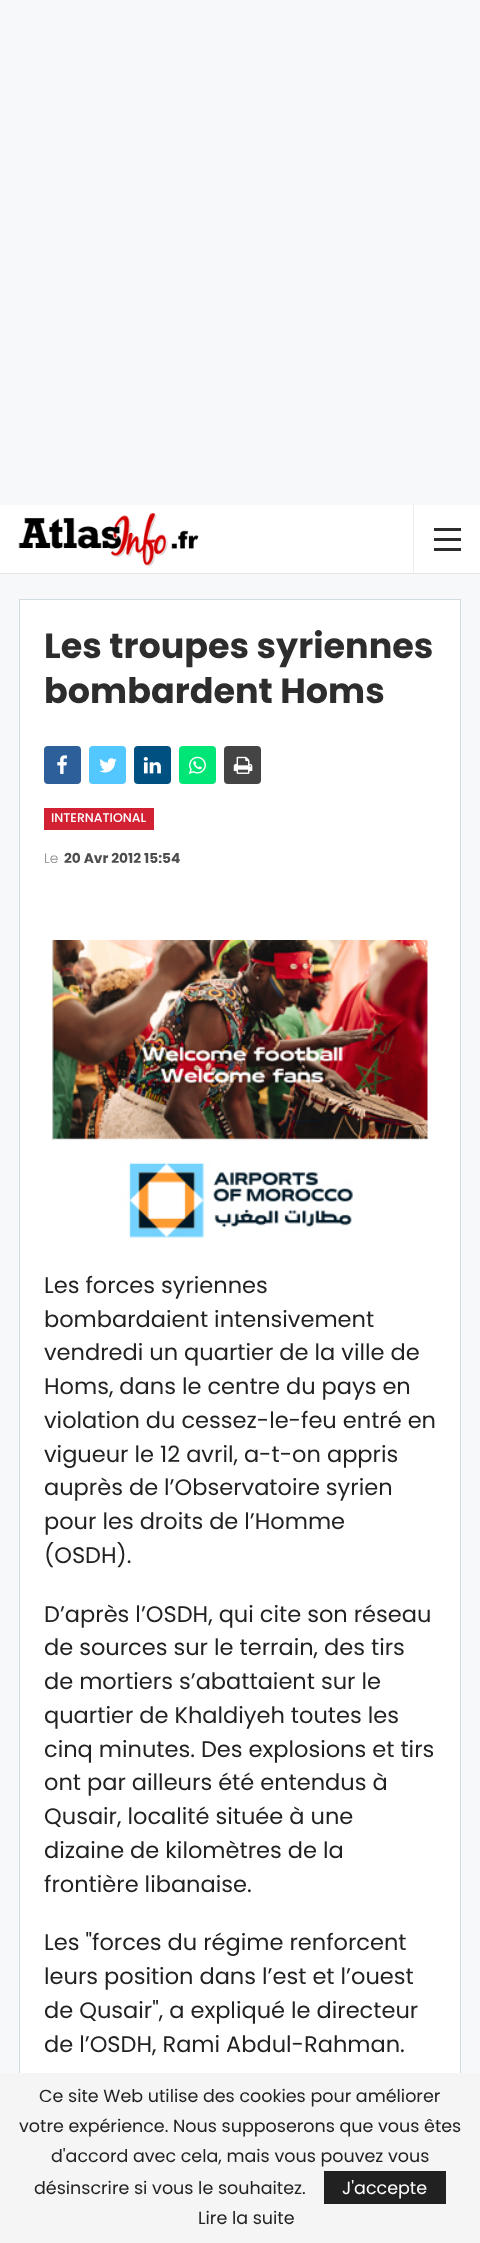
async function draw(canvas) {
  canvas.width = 480;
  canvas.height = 2243;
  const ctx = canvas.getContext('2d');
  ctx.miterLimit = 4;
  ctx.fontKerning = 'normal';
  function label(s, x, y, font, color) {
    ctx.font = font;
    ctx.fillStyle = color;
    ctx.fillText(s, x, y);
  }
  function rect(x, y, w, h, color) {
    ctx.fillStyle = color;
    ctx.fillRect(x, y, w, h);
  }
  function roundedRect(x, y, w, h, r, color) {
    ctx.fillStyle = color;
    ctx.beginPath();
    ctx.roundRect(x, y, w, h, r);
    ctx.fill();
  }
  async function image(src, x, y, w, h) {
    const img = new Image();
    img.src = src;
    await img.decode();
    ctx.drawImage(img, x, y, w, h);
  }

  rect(0, 0, 480, 2243, '#f6f8fa');
  rect(0, 505, 480, 68, '#fff');
  rect(0, 573, 480, 1, '#e5e5e5');
  await image('assets/img1.png', 18, 513, 181, 54);
  rect(413, 505, 1, 68, '#ededed');
  rect(434, 538, 27, 3, '#2c2c2c');
  rect(434, 528, 27, 3, '#2c2c2c');
  rect(434, 548, 27, 3, '#2c2c2c');
  rect(20, 600, 440, 1473, '#fff');
  ctx.strokeStyle = '#d2dce3';
  ctx.strokeRect(19.5, 599.5, 441, 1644);
  label('Les troupes syriennes', 44, 658, 'bold 35px Poppins', '#2d2d2d');
  label('bombardent Homs', 44, 703, 'bold 35px Poppins', '#2d2d2d');
  roundedRect(44, 746, 37, 38, 4, '#2d5f9a');
  await image('assets/img2.png', 57, 755, 10, 19);
  roundedRect(89, 746, 37, 38, 4, '#53c7ff');
  await image('assets/img3.png', 99, 758, 18, 15);
  roundedRect(134, 746, 37, 38, 4, '#005182');
  await image('assets/img4.png', 143, 757, 18, 17);
  roundedRect(179, 746, 37, 38, 4, '#00e676');
  await image('assets/img5.png', 188, 756, 18, 18);
  roundedRect(224, 746, 37, 38, 4, '#444');
  await image('assets/img6.png', 233, 756, 20, 18);
  rect(44, 808, 110, 22, '#d12133');
  label('INTERNATIONAL', 51, 822, '500 12.5px Poppins', '#fff');
  label('Le', 44, 863, '300 13.75px Poppins', '#8f8f8f');
  label('20 Avr 2012 15:54', 64, 863, 'bold 13.75px Poppins', '#4d4d4d');
  await image('assets/img7.png', 52, 940, 376, 298);
  label('Les forces syriennes', 44, 1293, '22.5px Poppins', '#222');
  label('bombardaient intensivement', 44, 1327, '22.5px Poppins', '#222');
  label('vendredi un quartier de la ville de', 44, 1360, '22.5px Poppins', '#222');
  label('Homs, dans le centre du pays en', 44, 1394, '22.5px Poppins', '#222');
  label('violation du cessez-le-feu entré en', 44, 1428, '22.5px Poppins', '#222');
  label('vigueur le 12 avril, a-t-on appris', 44, 1462, '22.5px Poppins', '#222');
  label('auprès de l’Observatoire syrien', 44, 1495, '22.5px Poppins', '#222');
  label('pour les droits de l’Homme', 44, 1529, '22.5px Poppins', '#222');
  label('(OSDH).', 44, 1563, '22.5px Poppins', '#222');
  label('D’après l’OSDH, qui cite son réseau', 44, 1622, '22.5px Poppins', '#222');
  label('de sources sur le terrain, des tirs', 44, 1655, '22.5px Poppins', '#222');
  label('de mortiers s’abattaient sur le', 44, 1689, '22.5px Poppins', '#222');
  label('quartier de Khaldiyeh toutes les', 44, 1723, '22.5px Poppins', '#222');
  label('cinq minutes. Des explosions et tirs', 44, 1757, '22.5px Poppins', '#222');
  label('ont par ailleurs été entendus à', 44, 1790, '22.5px Poppins', '#222');
  label('Qusair, localité située à une', 44, 1824, '22.5px Poppins', '#222');
  label('dizaine de kilomètres de la', 44, 1858, '22.5px Poppins', '#222');
  label('frontière libanaise.', 44, 1892, '22.5px Poppins', '#222');
  label('Les "forces du régime renforcent', 44, 1950, '22.5px Poppins', '#222');
  label('leurs position dans l’est et l’ouest', 44, 1984, '22.5px Poppins', '#222');
  label('de Qusair", a expliqué le directeur', 44, 2018, '22.5px Poppins', '#222');
  label('de l’OSDH, Rami Abdul-Rahman.', 44, 2052, '22.5px Poppins', '#222');
  rect(0, 2073, 480, 170, '#f5f5f5');
  label('Ce site Web utilise des cookies pour améliorer', 39, 2102, '17.5px Poppins', '#222');
  label('votre expérience. Nous supposerons que vous êtes', 19, 2132, '17.5px Poppins', '#222');
  label('d\'accord avec cela, mais vous pouvez vous', 51, 2162, '17.5px Poppins', '#222');
  label('désinscrire si vous le souhaitez.', 34, 2194, '17.5px Poppins', '#222');
  rect(324, 2171, 122, 33, '#212121');
  label('J\'accepte', 342, 2194, '17.5px Poppins', '#fff');
  label('Lire la suite', 198, 2224, '17.5px Poppins', '#222');
}

draw(document.querySelector('canvas'));
